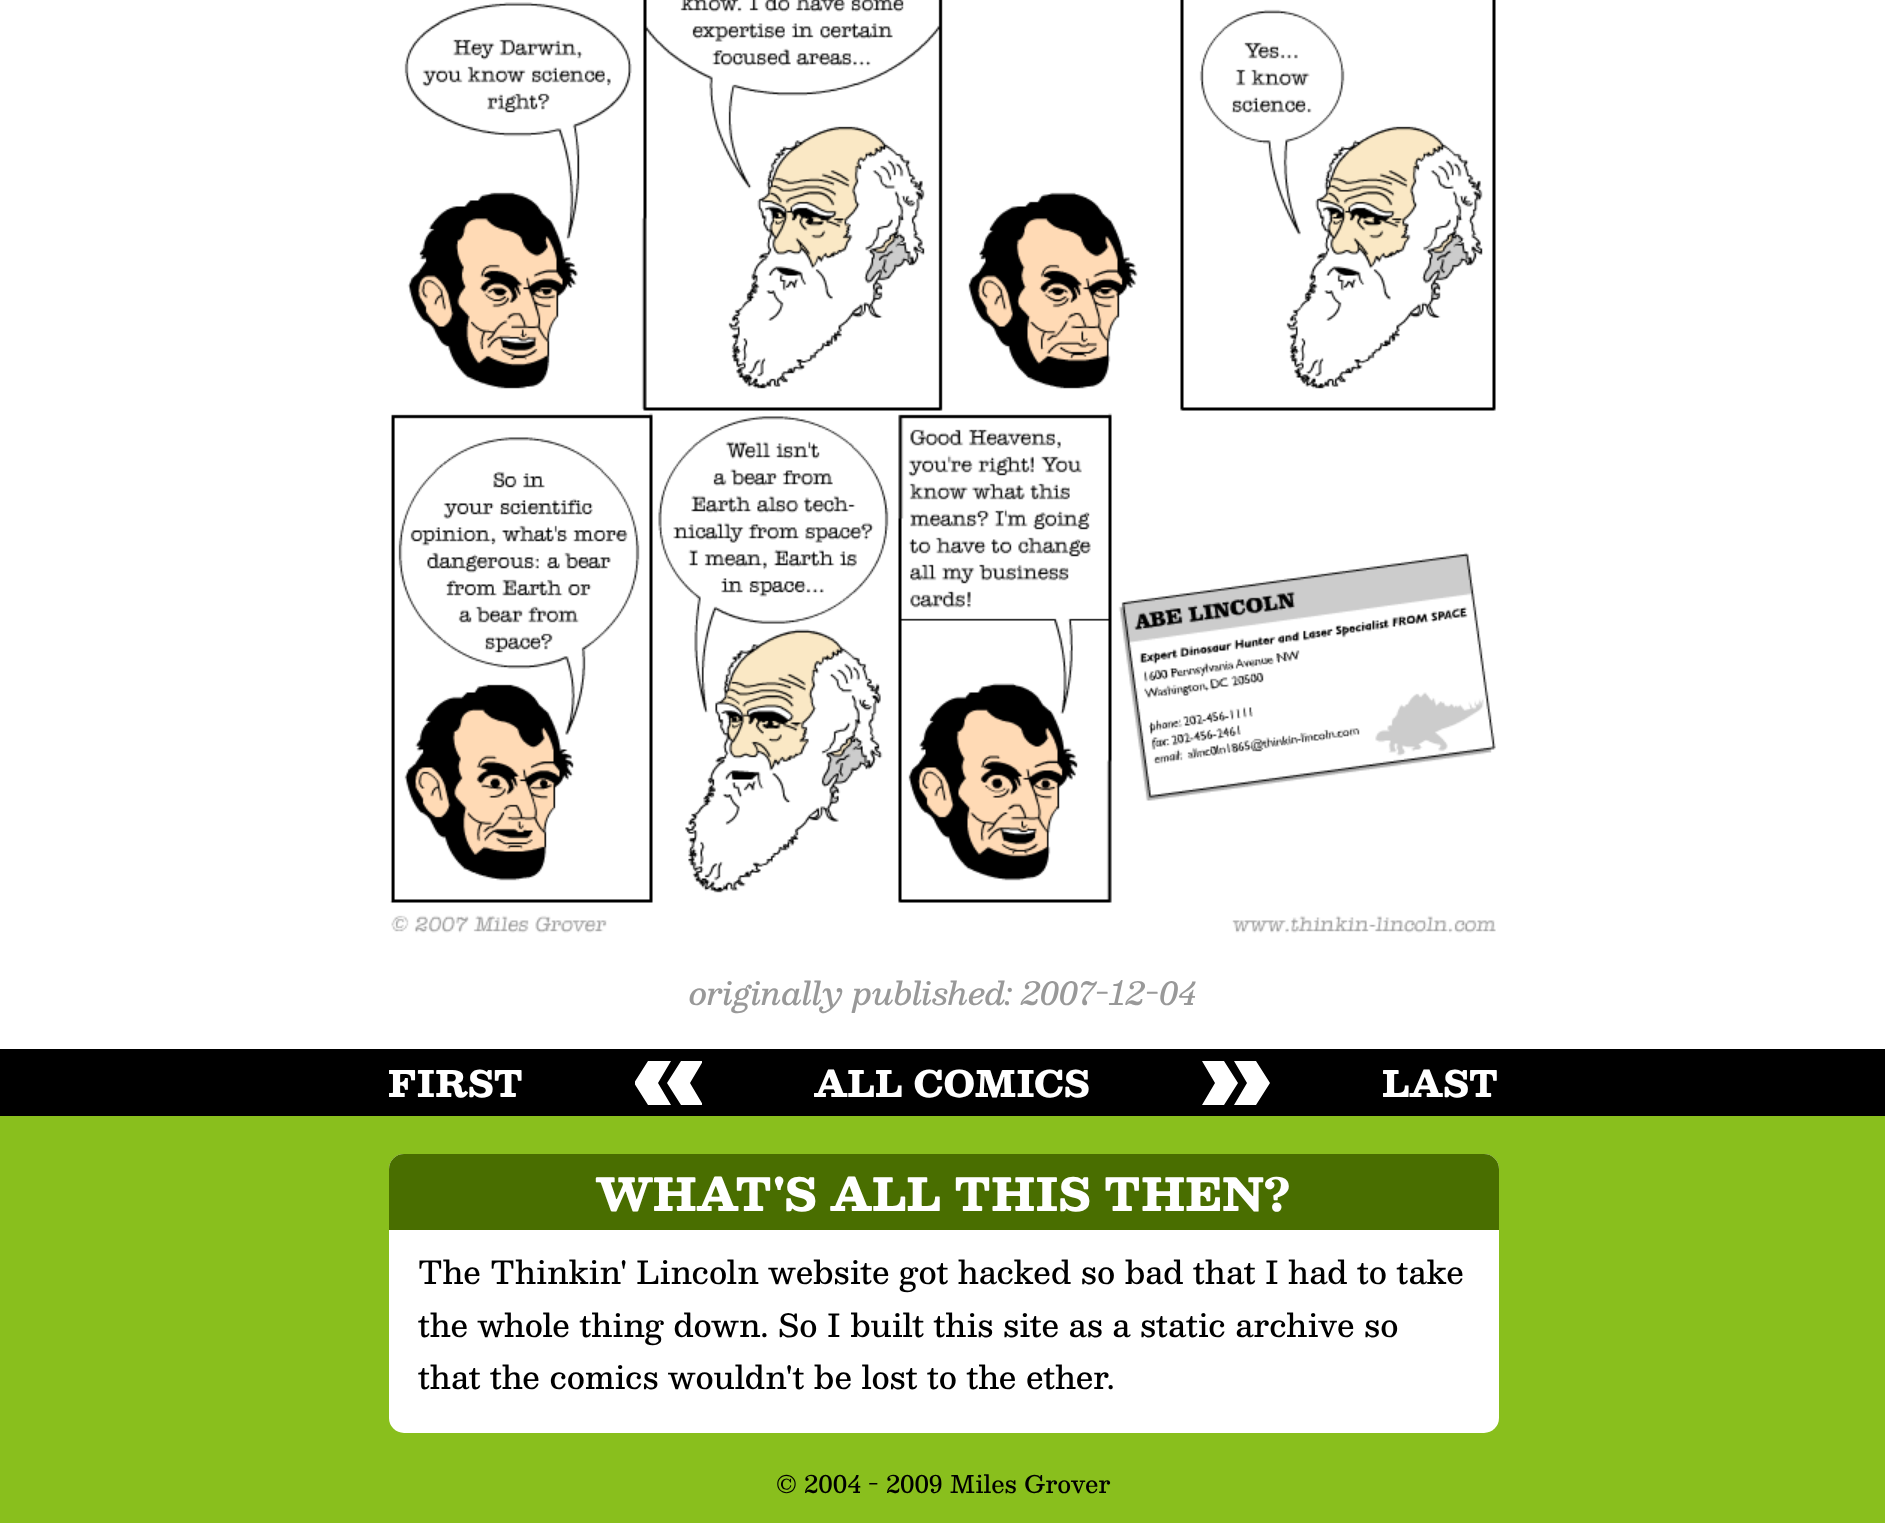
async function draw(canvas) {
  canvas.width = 1885;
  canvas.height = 1523;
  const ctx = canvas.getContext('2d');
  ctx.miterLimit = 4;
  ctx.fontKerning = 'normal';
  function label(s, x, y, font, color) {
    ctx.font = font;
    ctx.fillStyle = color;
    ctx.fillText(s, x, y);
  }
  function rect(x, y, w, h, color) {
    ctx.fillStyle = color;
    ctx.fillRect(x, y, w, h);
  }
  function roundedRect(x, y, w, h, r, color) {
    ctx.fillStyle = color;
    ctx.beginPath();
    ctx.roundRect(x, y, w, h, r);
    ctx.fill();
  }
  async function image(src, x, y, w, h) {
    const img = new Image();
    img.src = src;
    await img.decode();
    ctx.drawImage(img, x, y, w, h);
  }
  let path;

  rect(0, 0, 1885, 1523, '#89bf1d');
  rect(0, 0, 1885, 1049, '#fff');
  await image('assets/img1.png', 390, 0, 1106, 933);
  label('originally published: 2007-12-04', 689, 1005, 'italic 500 31.5px Besley', '#999');
  rect(0, 1049, 1885, 67, '#000');
  label('FIRST', 388, 1097, '800 36px Besley', '#fff');
  ctx.save();
  ctx.beginPath();
  ctx.rect(635, 1061, 67, 45);
  ctx.clip();
  path = new Path2D('M648 1061H671L658 1083L671 1105H648L634 1083ZM681 1061H703L690 1083L703 1105H681L667 1083Z');
  ctx.fill(path);
  ctx.restore();
  label('ALL COMICS', 814, 1097, '800 36px Besley', '#fff');
  path = new Path2D('M1256 1061H1234L1247 1083L1234 1105H1256L1270 1083ZM1224 1061H1202L1215 1083L1202 1105H1224L1238 1083Z');
  ctx.fill(path);
  label('LAST', 1382, 1097, '800 36px Besley', '#fff');
  roundedRect(389, 1154, 1110, 279, 15, '#fff');
  ctx.fillStyle = '#496e00';
  ctx.beginPath();
  ctx.roundRect(389, 1154, 1110, 76, [15, 15, 0, 0]);
  ctx.fill();
  label('WHAT\'S ALL THIS THEN?', 596, 1211, '800 45px Besley', '#fff');
  label('The Thinkin\' Lincoln website got hacked so bad that I had to take', 418, 1284, '500 31.5px Besley', '#000');
  label('the whole thing down. So I built this site as a static archive so', 418, 1337, '500 31.5px Besley', '#000');
  label('that the comics wouldn\'t be lost to the ether.', 418, 1389, '500 31.5px Besley', '#000');
  label('© 2004 - 2009 Miles Grover', 776, 1493, '500 24px Besley', '#000');
}

draw(document.querySelector('canvas'));
